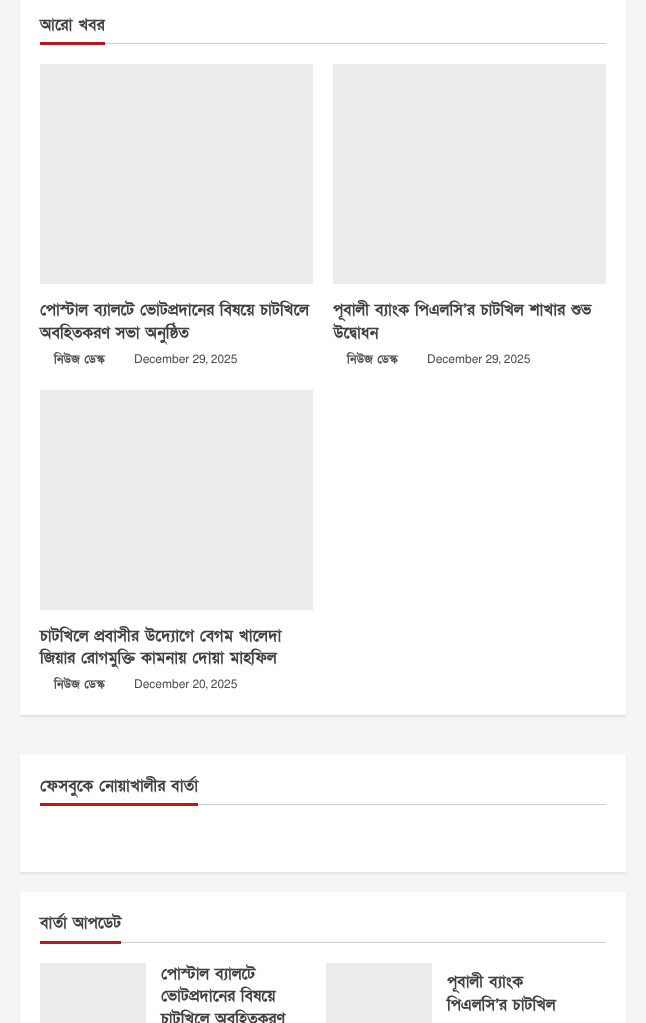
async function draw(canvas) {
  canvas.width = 646;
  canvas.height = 1023;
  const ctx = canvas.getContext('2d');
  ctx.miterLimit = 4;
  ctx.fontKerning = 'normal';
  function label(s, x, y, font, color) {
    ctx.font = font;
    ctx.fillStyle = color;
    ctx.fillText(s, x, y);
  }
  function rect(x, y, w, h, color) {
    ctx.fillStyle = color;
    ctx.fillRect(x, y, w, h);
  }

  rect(0, 0, 646, 1023, '#f5f5f5');
  ctx.fillStyle = '#00000014';
  ctx.filter = 'blur(1px)';
  ctx.beginPath();
  ctx.rect(20, -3, 606, 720);
  ctx.fill();
  ctx.filter = 'none';
  rect(20, 0, 606, 715, '#fff');
  rect(105, 43, 501, 1, '#ccc');
  label('আরো খবর', 40, 30, 'bold 16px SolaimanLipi', '#404040');
  rect(40, 42, 65, 3, '#bb1919');
  rect(40, 64, 273, 220, '#ececec');
  label('পোস্টাল ব্যালটে ভোটপ্রদানের বিষয়ে চাটখিলে', 40, 315, 'bold 16px SolaimanLipi', '#404040');
  label('অবহিতকরণ সভা অনুষ্ঠিত', 40, 338, 'bold 16px SolaimanLipi', '#404040');
  label('নিউজ ডেস্ক', 54, 363, 'bold 12px SolaimanLipi', '#4a4a4a');
  label('December 29, 2025', 134, 363, '12px SolaimanLipi', '#4a4a4a');
  rect(333, 64, 273, 220, '#ececec');
  label('পূবালী ব্যাংক পিএলসি’র চাটখিল শাখার শুভ', 333, 315, 'bold 16px SolaimanLipi', '#404040');
  label('উদ্বোধন', 333, 338, 'bold 16px SolaimanLipi', '#404040');
  label('নিউজ ডেস্ক', 347, 363, 'bold 12px SolaimanLipi', '#4a4a4a');
  label('December 29, 2025', 427, 363, '12px SolaimanLipi', '#4a4a4a');
  rect(40, 390, 273, 220, '#ececec');
  label('চাটখিলে প্রবাসীর উদ্যোগে বেগম খালেদা', 40, 641, 'bold 16px SolaimanLipi', '#404040');
  label('জিয়ার রোগমুক্তি কামনায় দোয়া মাহফিল', 40, 663, 'bold 16px SolaimanLipi', '#404040');
  label('নিউজ ডেস্ক', 54, 688, 'bold 12px SolaimanLipi', '#4a4a4a');
  label('December 20, 2025', 134, 688, '12px SolaimanLipi', '#4a4a4a');
  ctx.fillStyle = '#00000014';
  ctx.filter = 'blur(1px)';
  ctx.beginPath();
  ctx.rect(20, 757, 606, 117);
  ctx.fill();
  ctx.filter = 'none';
  rect(20, 755, 606, 117, '#fff');
  rect(198, 804, 408, 1, '#ccc');
  label('ফেসবুকে নোয়াখালীর বার্তা', 40, 791, 'bold 16px SolaimanLipi', '#404040');
  rect(40, 803, 158, 3, '#bb1919');
  ctx.fillStyle = '#00000014';
  ctx.filter = 'blur(1px)';
  ctx.beginPath();
  ctx.rect(20, 894, 606, 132);
  ctx.fill();
  ctx.filter = 'none';
  rect(20, 892, 606, 131, '#fff');
  rect(121, 942, 485, 1, '#ccc');
  label('বার্তা আপডেট', 40, 928, 'bold 16px SolaimanLipi', '#404040');
  rect(40, 941, 81, 3, '#bb1919');
  rect(40, 963, 106, 60, '#ececec');
  label('পোস্টাল ব্যালটে', 161, 979, 'bold 16px SolaimanLipi', '#404040');
  label('ভোটপ্রদানের বিষয়ে', 161, 1001, 'bold 16px SolaimanLipi', '#404040');
  label('চাটখিলে অবহিতকরণ', 161, 1024, 'bold 16px SolaimanLipi', '#404040');
  rect(326, 963, 106, 60, '#ececec');
  label('পূবালী ব্যাংক', 447, 987, 'bold 16px SolaimanLipi', '#404040');
  label('পিএলসি’র চাটখিল', 447, 1010, 'bold 16px SolaimanLipi', '#404040');
}

draw(document.querySelector('canvas'));
